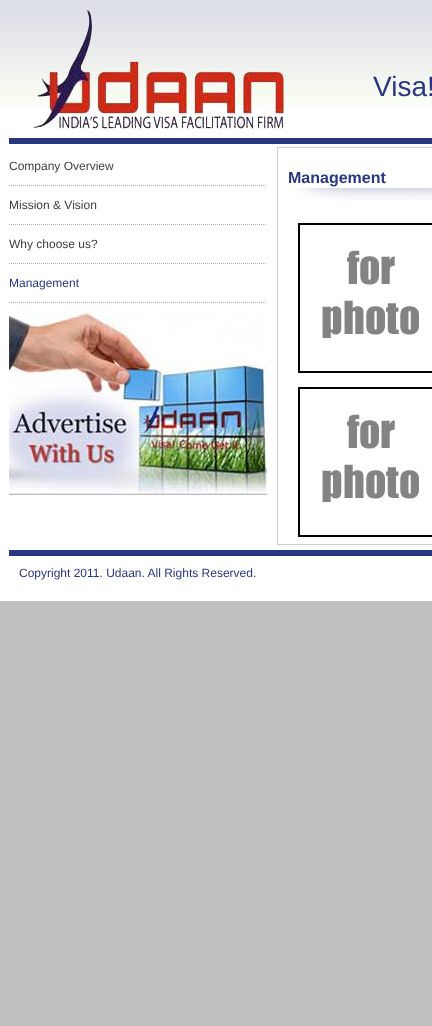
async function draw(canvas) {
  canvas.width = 432;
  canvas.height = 1026;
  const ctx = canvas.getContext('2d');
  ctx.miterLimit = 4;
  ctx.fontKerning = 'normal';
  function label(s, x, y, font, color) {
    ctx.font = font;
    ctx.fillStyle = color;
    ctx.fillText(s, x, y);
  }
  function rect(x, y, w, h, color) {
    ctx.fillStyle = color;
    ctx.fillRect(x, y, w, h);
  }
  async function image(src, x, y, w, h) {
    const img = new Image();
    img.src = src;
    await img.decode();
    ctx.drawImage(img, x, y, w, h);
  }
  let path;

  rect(0, 0, 432, 1026, '#bfbfbf');
  rect(0, 105, 432, 496, '#fff');
  await image('assets/img1.png', 0, 0, 432, 105);
  await image('assets/img2.png', 33, 10, 252, 119);
  label('Visa!', 373, 96, '28px Liberation Sans', '#293782');
  rect(9, 138, 423, 6, '#293782');
  path = new Path2D('M9 185.5H266');
  ctx.strokeStyle = '#aeaeae';
  ctx.setLineDash([1, 1]);
  ctx.stroke(path);
  label('Company Overview', 9, 170, '12px Liberation Sans', '#3f3f3f');
  path = new Path2D('M9 224.5H266');
  ctx.stroke(path);
  label('Mission & Vision', 9, 209, '12px Liberation Sans', '#3f3f3f');
  path = new Path2D('M9 263.5H266');
  ctx.stroke(path);
  label('Why choose us?', 9, 248, '12px Liberation Sans', '#3f3f3f');
  path = new Path2D('M9 302.5H266');
  ctx.stroke(path);
  label('Management', 9, 287, '12px Liberation Sans', '#293782');
  await image('assets/img3.png', 9, 311, 258, 184);
  ctx.strokeStyle = '#ccc';
  ctx.setLineDash([]);
  ctx.strokeRect(277.5, 147.5, 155, 397);
  await image('assets/img4.png', 296, 188, 136, 12);
  label('Management', 288, 183, 'bold 16px Liberation Sans', '#293782');
  await image('assets/img5.png', 298, 223, 134, 150);
  await image('assets/img5.png', 298, 387, 134, 150);
  rect(9, 550, 423, 6, '#293782');
  label('Copyright 2011. Udaan. All Rights Reserved.', 19, 577, '12px Liberation Sans', '#293782');
}

draw(document.querySelector('canvas'));
